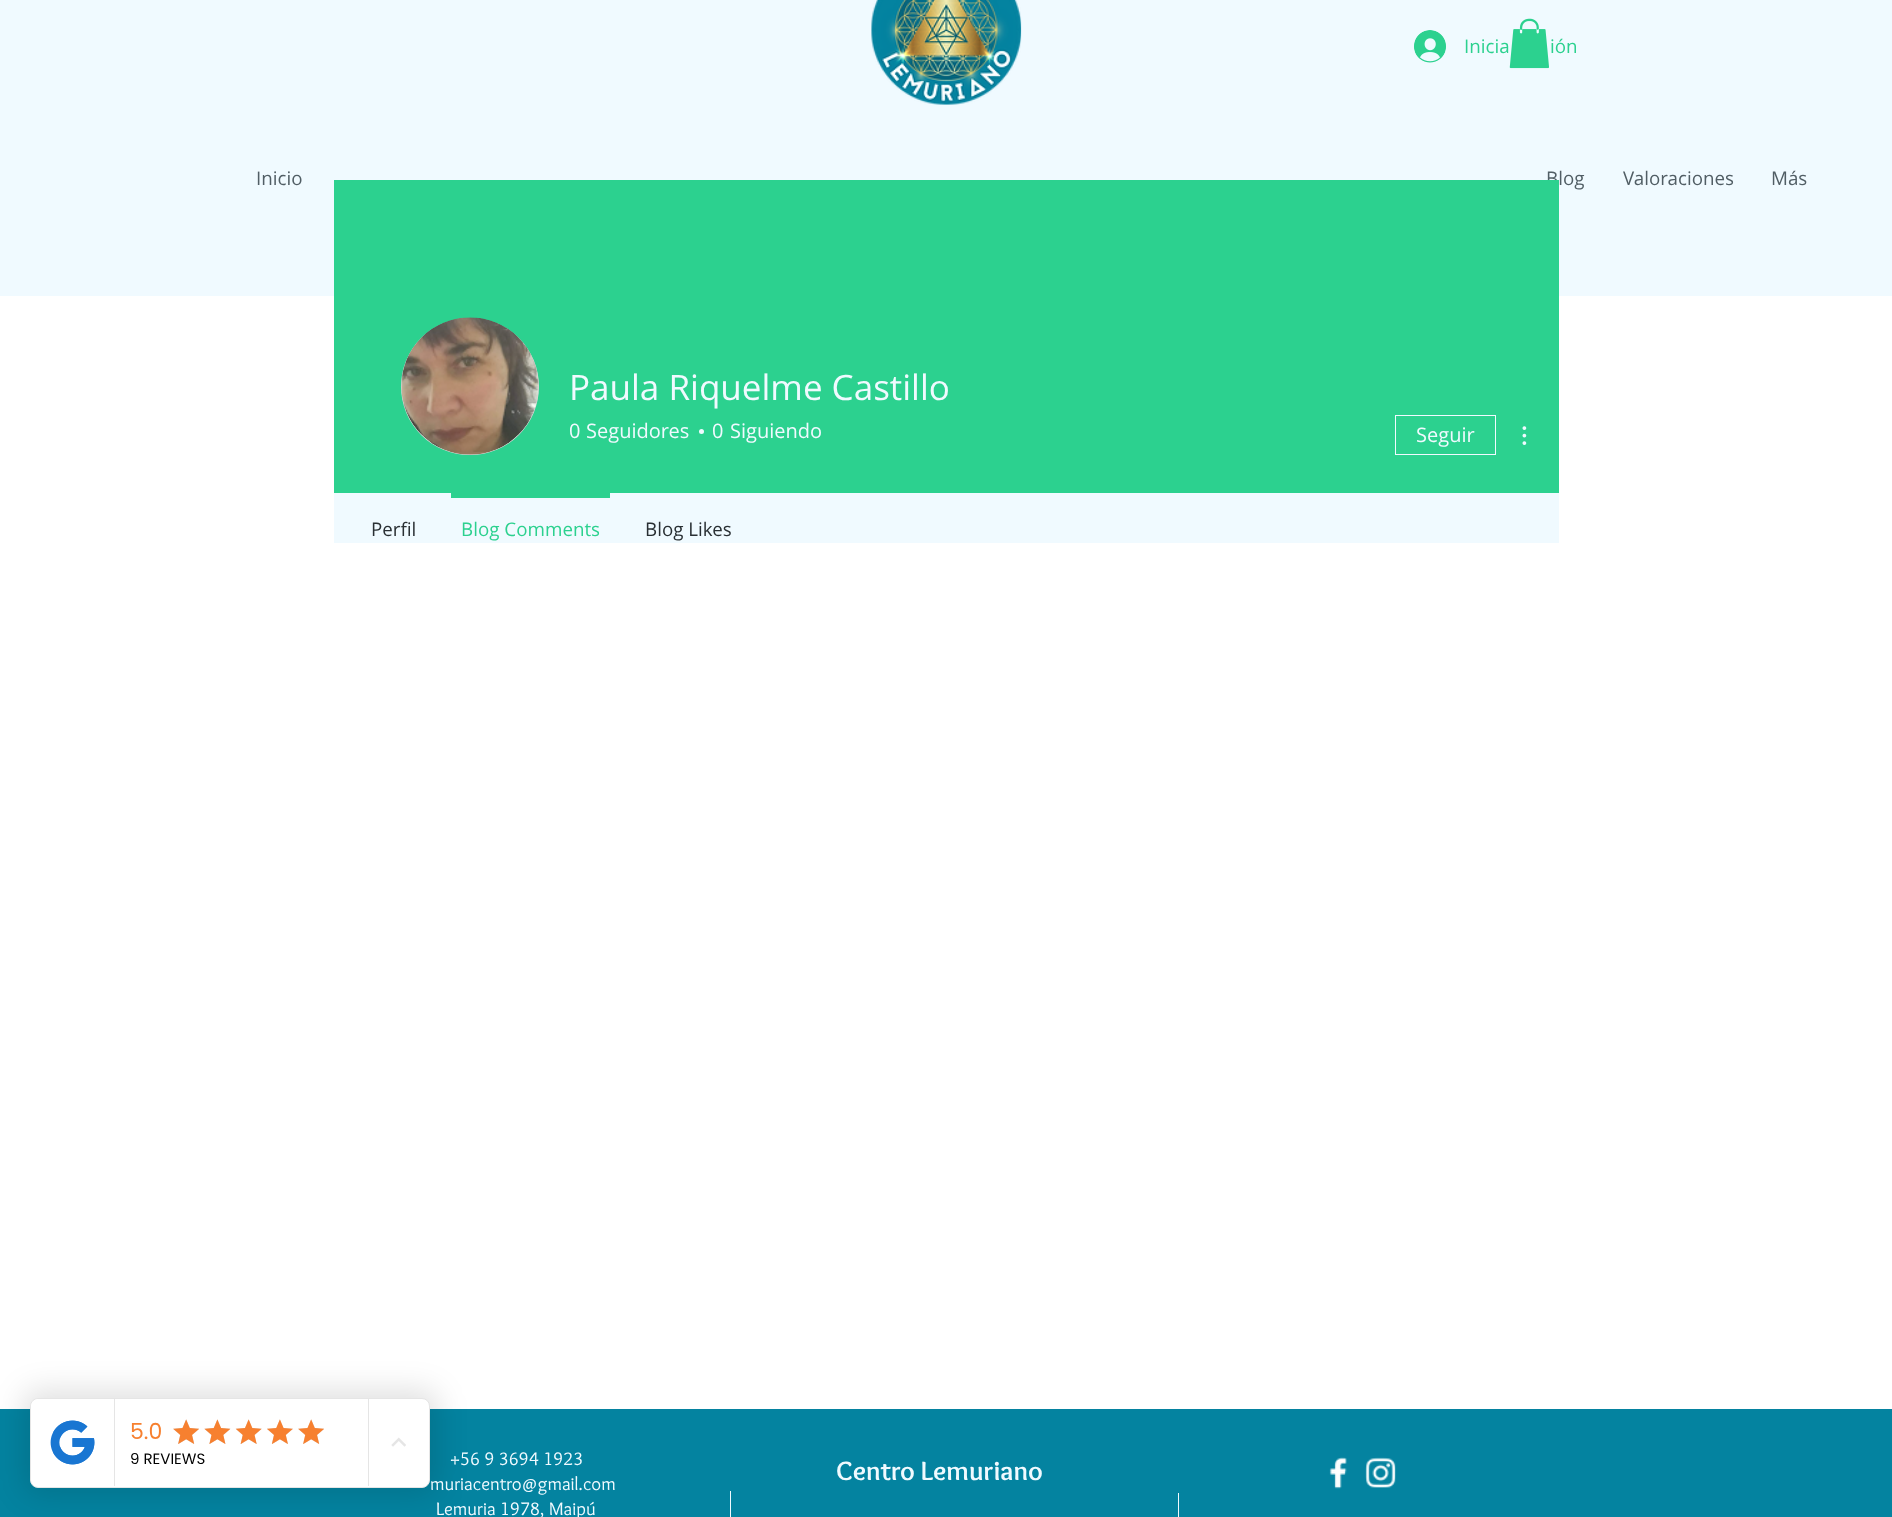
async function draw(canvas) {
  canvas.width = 1892;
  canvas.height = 1517;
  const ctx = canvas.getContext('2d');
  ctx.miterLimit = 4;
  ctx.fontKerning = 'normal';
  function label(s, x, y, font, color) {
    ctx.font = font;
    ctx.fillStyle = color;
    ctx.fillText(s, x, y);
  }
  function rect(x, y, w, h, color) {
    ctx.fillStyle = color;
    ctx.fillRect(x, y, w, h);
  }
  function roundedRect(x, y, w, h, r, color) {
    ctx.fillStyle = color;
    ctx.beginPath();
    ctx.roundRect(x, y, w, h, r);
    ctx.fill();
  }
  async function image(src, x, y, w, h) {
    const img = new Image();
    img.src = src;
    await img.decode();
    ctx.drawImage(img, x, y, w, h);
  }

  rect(0, 0, 1892, 1517, '#fff');
  rect(0, 1409, 1892, 108, '#0483a0');
  ctx.fillStyle = '#0000001f';
  ctx.filter = 'blur(15px)';
  ctx.beginPath();
  ctx.roundRect(23, 1390, 415, 105, 15);
  ctx.fill();
  ctx.filter = 'none';
  ctx.fillStyle = '#fff';
  ctx.beginPath();
  ctx.roundRect(30.5, 1398.5, 399, 89, 7.5);
  ctx.fill();
  ctx.strokeStyle = '#e5e5e5';
  ctx.stroke();
  ctx.beginPath();
  ctx.roundRect(31, 1399, 84, 87, [8, 0, 0, 8]);
  ctx.fill();
  rect(114, 1399, 1, 87, '#e5e5e5');
  await image('assets/img1.png', 50, 1420, 45, 45);
  rect(368, 1399, 1, 87, '#e5e5e5');
  label('5.0', 130, 1439, '22px Poppins', '#f7802f');
  await image('assets/img2.png', 173, 1419, 26, 25);
  await image('assets/img3.png', 173, 1419, 26, 25);
  await image('assets/img4.png', 204, 1419, 26, 25);
  await image('assets/img5.png', 204, 1419, 27, 25);
  await image('assets/img7.png', 236, 1419, 26, 25);
  await image('assets/img6.png', 235, 1419, 27, 25);
  await image('assets/img8.png', 267, 1419, 26, 25);
  await image('assets/img9.png', 267, 1419, 26, 25);
  await image('assets/img2.png', 298, 1419, 26, 25);
  await image('assets/img3.png', 298, 1419, 26, 25);
  label('9 REVIEWS', 130, 1464, '15px Poppins', '#000');
  await image('assets/img10.png', 391, 1437, 15, 10);
  rect(0, 0, 1892, 296, '#f0faff');
  await image('assets/img11.png', 871, 0, 151, 105);
  await image('assets/img12.png', 1509, 18, 40, 51);
  await image('assets/img13.png', 1414, 30, 32, 33);
  label('Inicia', 1464, 53, '18.75px Open Sans', '#2cd18f');
  label('ión', 1550, 53, '18.75px Open Sans', '#2cd18f');
  label('Inicio', 256, 185, '18.75px Open Sans', '#515e65');
  label('Blog', 1546, 185, '18.75px Open Sans', '#515e65');
  label('Valoraciones', 1623, 185, '18.75px Open Sans', '#515e65');
  label('Más', 1771, 185, '18.75px Open Sans', '#515e65');
  rect(334, 180, 1225, 313, '#2cd18f');
  roundedRect(401, 318, 138, 137, 68.5, '#d8d8d8');
  await image('assets/img14.png', 401, 317, 138, 138);
  label('Paula Riquelme Castillo', 569, 400, '35px Open Sans', '#f0faff');
  label('0', 569, 438, '20px Open Sans', '#f0faff');
  label('Seguidores', 586, 438, '20px Open Sans', '#f0faff');
  ctx.beginPath();
  ctx.arc(701.5, 431.5, 2.5, 0, 2 * Math.PI);
  ctx.fill();
  label('0', 712, 438, '20px Open Sans', '#f0faff');
  label('Siguiendo', 730, 438, '20px Open Sans', '#f0faff');
  ctx.strokeStyle = '#f0faff';
  ctx.strokeRect(1395.5, 415.5, 100, 39);
  label('Seguir', 1416, 442, '20px Open Sans', '#f0faff');
  await image('assets/img15.png', 1522, 426, 5, 19);
  rect(334, 493, 1225, 50, '#f0faff');
  label('Perfil', 371, 536, '18.75px Open Sans', '#292f33');
  rect(451, 493, 159, 5, '#2cd18f');
  label('Blog Comments', 461, 536, '18.75px Open Sans', '#2cd18f');
  label('Blog Likes', 645, 536, '18.75px Open Sans', '#292f33');
  label('+56 9 3694 1923', 450, 1465, '18.75px Overlock', '#f0faff');
  label('muriacentro@gmail.com', 430, 1490, '18.75px Overlock', '#f0faff');
  label('Lemuria 1978, Maipú', 436, 1515, '18.75px Overlock', '#f0faff');
  label('Centro Lemuriano', 836, 1480, 'bold 27.5px Overlock', '#f0faff');
  await image('assets/img16.png', 1329, 1457, 18, 32);
  await image('assets/img17.png', 1365, 1457, 31, 31);
  rect(1178, 1493, 1, 24, '#f0faff');
  rect(730, 1491, 1, 26, '#f0faff');
}

draw(document.querySelector('canvas'));
